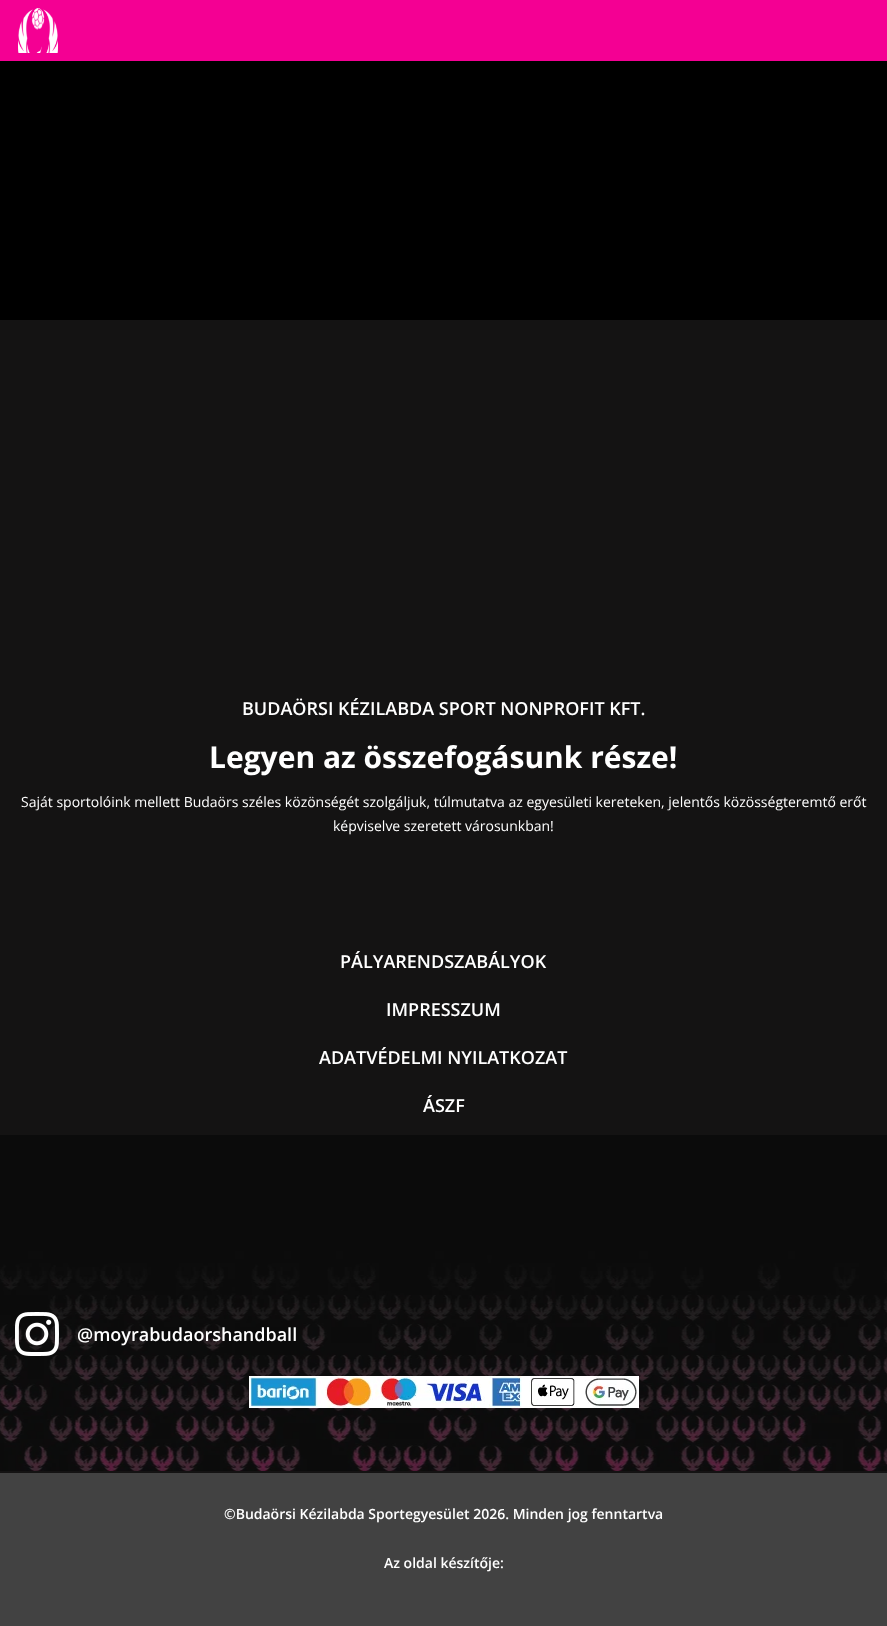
async function draw(canvas) {
  canvas.width = 887;
  canvas.height = 1626;
  const ctx = canvas.getContext('2d');
  ctx.miterLimit = 4;
  ctx.fontKerning = 'normal';
  function label(s, x, y, font, color) {
    ctx.font = font;
    ctx.fillStyle = color;
    ctx.fillText(s, x, y);
  }
  function rect(x, y, w, h, color) {
    ctx.fillStyle = color;
    ctx.fillRect(x, y, w, h);
  }
  async function image(src, x, y, w, h) {
    const img = new Image();
    img.src = src;
    await img.decode();
    ctx.drawImage(img, x, y, w, h);
  }

  rect(0, 0, 887, 1626, '#000');
  rect(0, 0, 887, 61, '#f40093');
  await image('assets/img1.png', 18, 8, 40, 45);
  rect(0, 320, 887, 1153, '#141313');
  label('BUDAÖRSI KÉZILABDA SPORT NONPROFIT KFT.', 242, 715, '600 18px Open Sans', '#fff');
  label('Legyen az összefogásunk része!', 209, 768, 'bold 30px Open Sans', '#fff');
  label('Saját sportolóink mellett Budaörs széles közönségét szolgáljuk, túlmutatva az egyesületi kereteken, jelentős közösségteremtő erőt', 21, 807, '14px Open Sans', '#fff');
  label('képviselve szeretett városunkban!', 333, 831, '14px Open Sans', '#fff');
  label('PÁLYARENDSZABÁLYOK', 340, 968, '600 18px Open Sans', '#fff');
  label('IMPRESSZUM', 386, 1016, '600 18px Open Sans', '#fff');
  label('ADATVÉDELMI NYILATKOZAT', 319, 1064, '600 18px Open Sans', '#fff');
  label('ÁSZF', 423, 1112, '600 18px Open Sans', '#fff');
  await image('assets/img4.png', 0, 1135, 887, 336);
  await image('assets/img2.png', 15, 1312, 44, 44);
  label('@moyrabudaorshandball', 77, 1341, '600 18px Open Sans', '#fff');
  await image('assets/img3.png', 249, 1376, 390, 32);
  rect(0, 1473, 887, 153, '#424242');
  label('©Budaörsi Kézilabda Sportegyesület 2026. Minden jog fenntartva', 224, 1519, '600 14px Open Sans', '#fff');
  label('Az oldal készítője:', 384, 1568, '600 14px Open Sans', '#fff');
}

draw(document.querySelector('canvas'));
